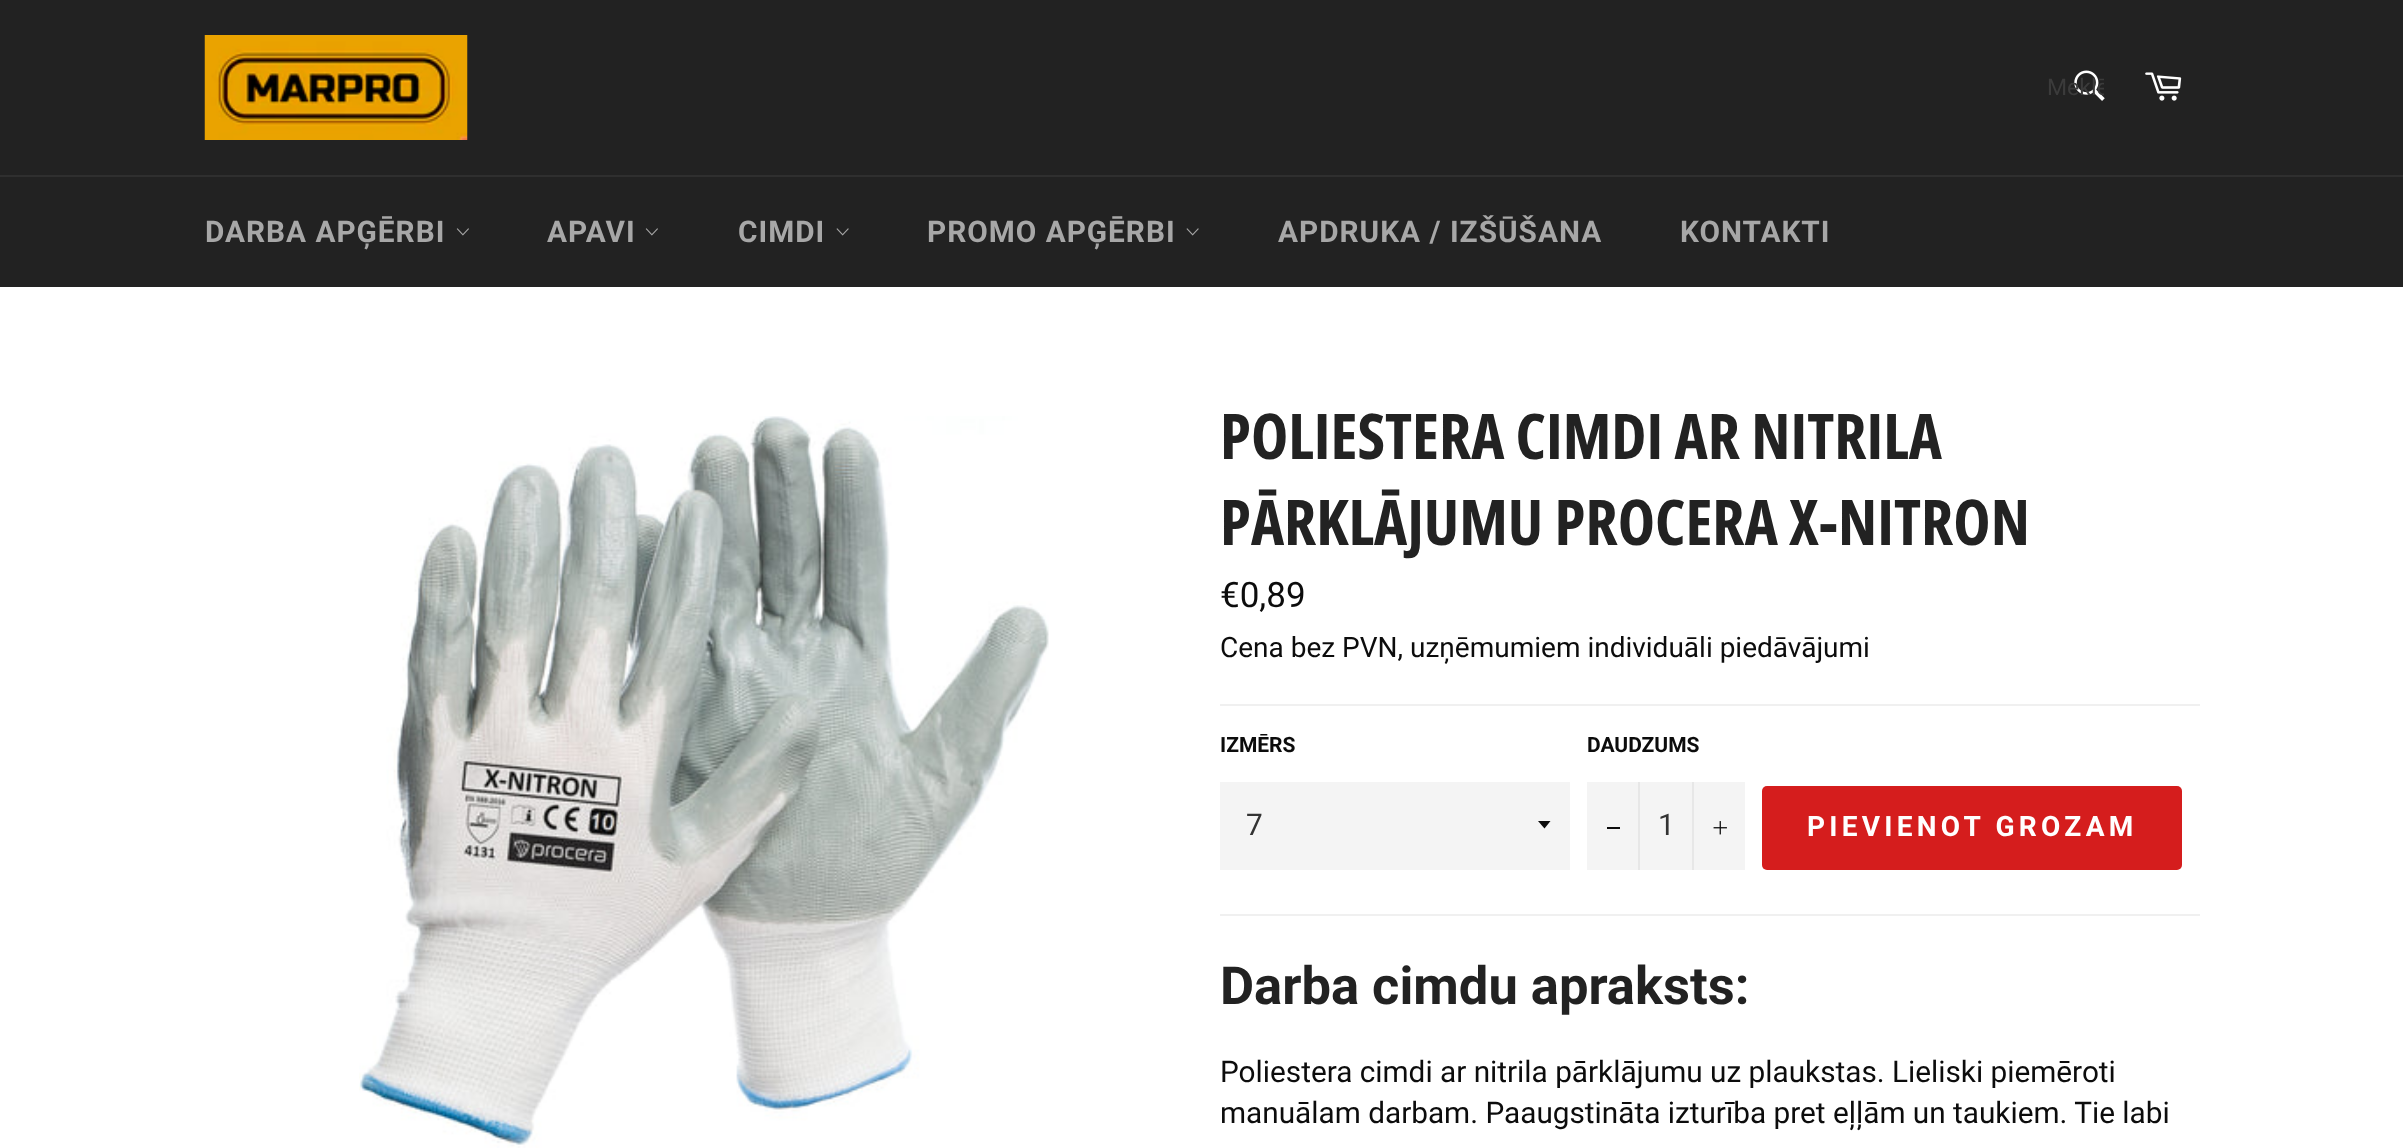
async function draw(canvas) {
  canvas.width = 2403;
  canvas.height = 1148;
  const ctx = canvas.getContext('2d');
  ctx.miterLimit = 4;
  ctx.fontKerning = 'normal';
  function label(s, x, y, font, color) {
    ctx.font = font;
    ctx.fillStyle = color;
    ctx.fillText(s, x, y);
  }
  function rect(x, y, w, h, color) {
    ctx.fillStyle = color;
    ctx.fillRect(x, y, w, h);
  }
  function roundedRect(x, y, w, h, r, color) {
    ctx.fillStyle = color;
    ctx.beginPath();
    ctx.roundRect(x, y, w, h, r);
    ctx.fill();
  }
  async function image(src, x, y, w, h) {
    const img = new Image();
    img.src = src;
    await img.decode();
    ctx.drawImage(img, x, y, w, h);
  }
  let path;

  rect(0, 0, 2403, 1148, '#222');
  await image('assets/img1.png', 204, 35, 264, 105);
  await image('assets/img2.png', 2074, 70, 31, 31);
  ctx.save();
  ctx.beginPath();
  ctx.rect(2048, 75, 56, 27);
  ctx.clip();
  label('Meklē', 2047, 95, '23px Roboto', '#3b3b3b');
  ctx.restore();
  await image('assets/img3.png', 2145, 72, 37, 29);
  rect(0, 175, 2403, 2, '#2f2f2f');
  ctx.letterSpacing = '1px';
  label('DARBA APĢĒRBI', 205, 242, 'bold 29.75px Roboto', '#a7a7a7');
  await image('assets/img4.png', 456, 228, 13, 8);
  label('APAVI', 547, 242, 'bold 29.75px Roboto', '#a7a7a7');
  await image('assets/img4.png', 645, 228, 13, 8);
  label('CIMDI', 738, 242, 'bold 29.75px Roboto', '#a7a7a7');
  await image('assets/img5.png', 836, 228, 13, 8);
  label('PROMO APĢĒRBI', 927, 242, 'bold 29.75px Roboto', '#a7a7a7');
  await image('assets/img5.png', 1186, 228, 13, 8);
  label('APDRUKA / IZŠŪŠANA', 1278, 242, 'bold 29.75px Roboto', '#a7a7a7');
  label('KONTAKTI', 1680, 242, 'bold 29.75px Roboto', '#a7a7a7');
  rect(0, 287, 2403, 861, '#fff');
  await image('assets/img6.png', 359, 416, 690, 732);
  ctx.letterSpacing = '0px';
  label('POLIESTERA CIMDI AR NITRILA', 1220, 459, 'bold 63px Open Sans Condensed', '#222');
  label('PĀRKLĀJUMU PROCERA X-NITRON', 1220, 545, 'bold 63px Open Sans Condensed', '#222');
  label('€0,89', 1220, 607, '35px Roboto', '#0c0c0c');
  label('Cena bez PVN, uzņēmumiem individuāli piedāvājumi', 1220, 657, '28px Roboto', '#0c0c0c');
  rect(1220, 704, 980, 2, '#f0f0f0');
  label('IZMĒRS', 1220, 752, 'bold 21px Roboto', '#0c0c0c');
  rect(1220, 782, 350, 88, '#f4f4f4');
  ctx.fillStyle = '#0c0c0c';
  path = new Path2D('M1538 821L1544.5 828.5L1550.5 821Z');
  ctx.fill(path);
  label('7', 1246, 835, '29.75px Roboto', '#333');
  label('DAUDZUMS', 1587, 752, 'bold 21px Roboto', '#0c0c0c');
  rect(1587, 782, 158, 88, '#f4f4f4');
  rect(1638, 782, 2, 88, '#e7e7e7');
  rect(1607, 827, 13, 2, '#0c0c0c');
  label('1', 1658, 835, '29.75px Roboto', '#333');
  rect(1692, 782, 2, 88, '#e7e7e7');
  await image('assets/img7.png', 1713, 821, 14, 14);
  roundedRect(1762, 786, 420, 84, 5, '#d51d1d');
  ctx.letterSpacing = '4.25px';
  label('PIEVIENOT GROZAM', 1807, 836, 'bold 28px Roboto', '#fff');
  rect(1220, 914, 980, 2, '#f0f0f0');
  ctx.letterSpacing = '0px';
  label('Darba cimdu apraksts:', 1220, 1004, 'bold 52.5px Roboto', '#222');
  label('Poliestera cimdi ar nitrila pārklājumu uz plaukstas. Lieliski piemēroti', 1220, 1082, '29.75px Roboto', '#0c0c0c');
  label('manuālam darbam. Paaugstināta izturība pret eļļām un taukiem. Tie labi', 1220, 1123, '29.75px Roboto', '#0c0c0c');
}

draw(document.querySelector('canvas'));
